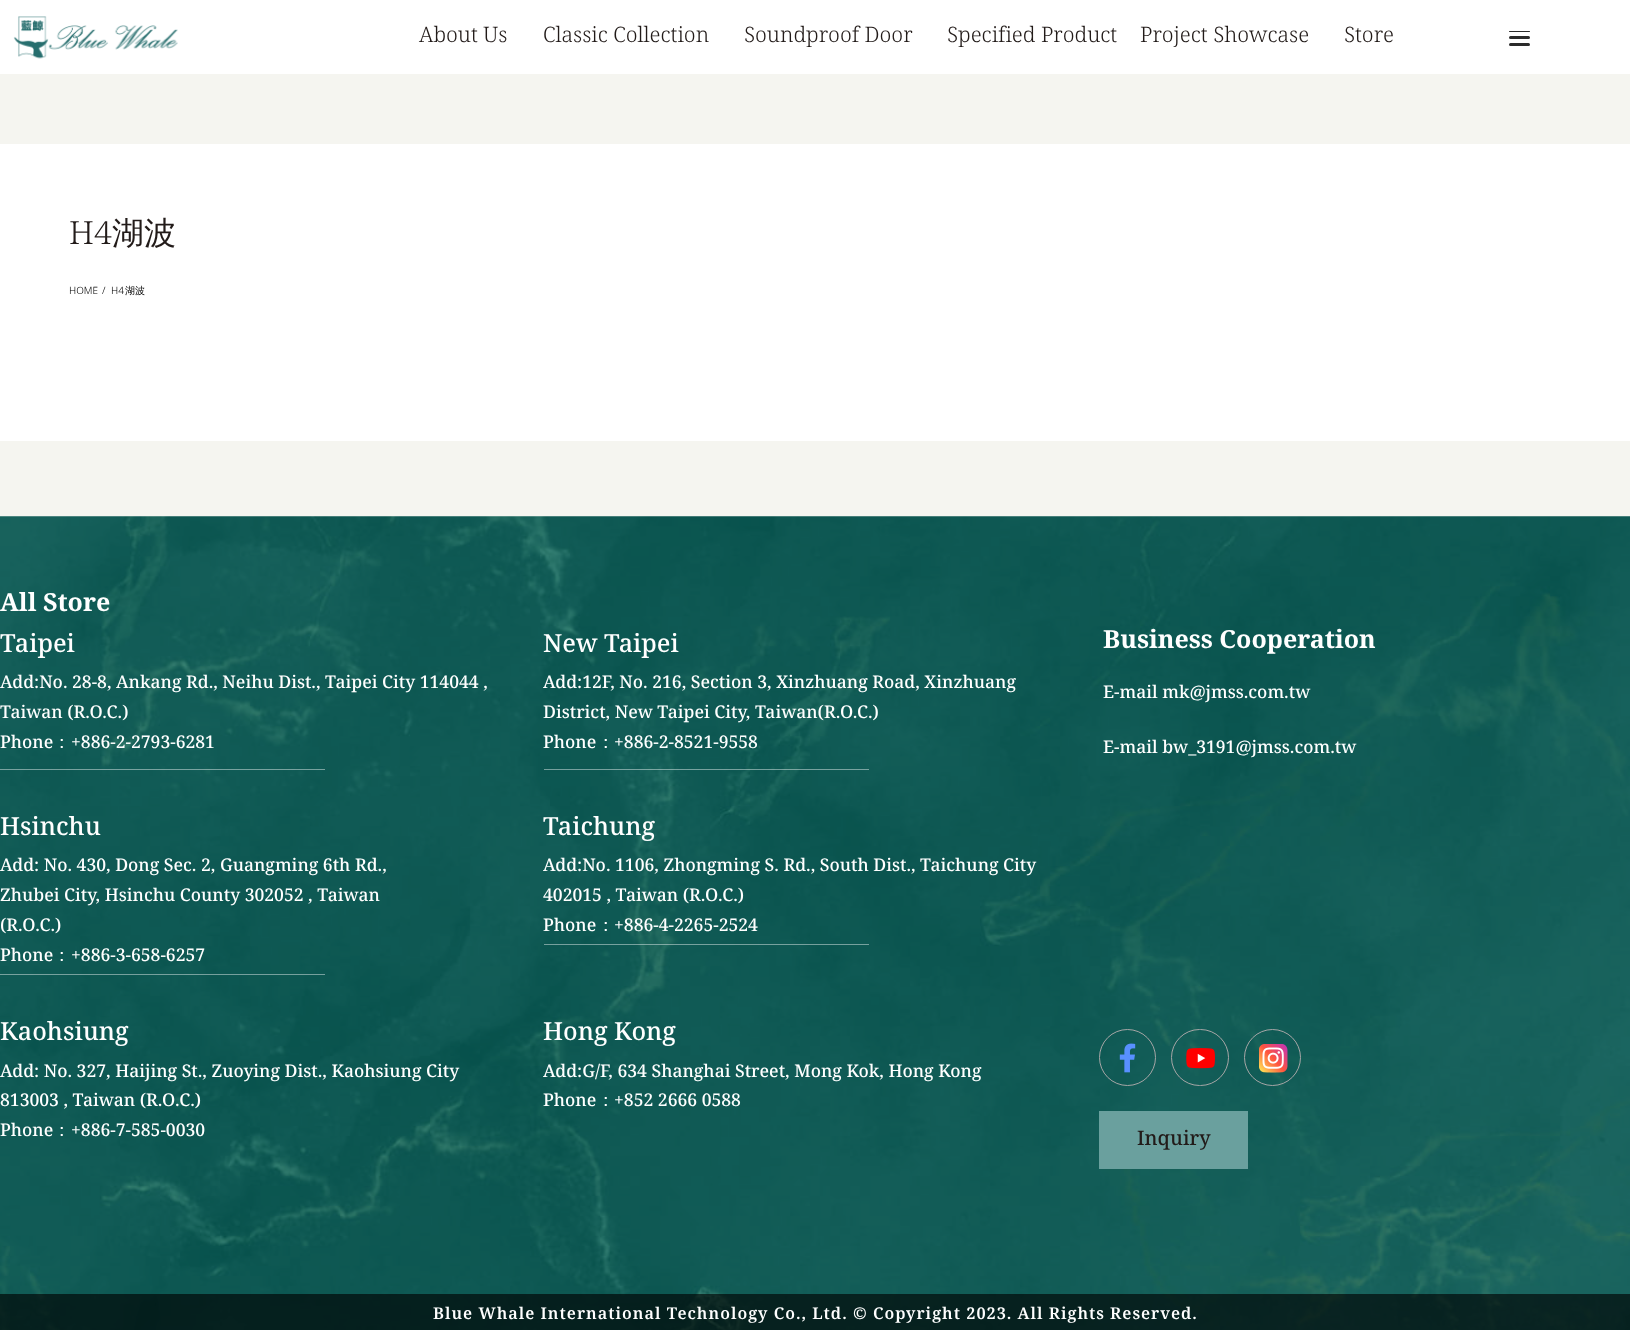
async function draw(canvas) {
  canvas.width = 1630;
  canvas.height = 1330;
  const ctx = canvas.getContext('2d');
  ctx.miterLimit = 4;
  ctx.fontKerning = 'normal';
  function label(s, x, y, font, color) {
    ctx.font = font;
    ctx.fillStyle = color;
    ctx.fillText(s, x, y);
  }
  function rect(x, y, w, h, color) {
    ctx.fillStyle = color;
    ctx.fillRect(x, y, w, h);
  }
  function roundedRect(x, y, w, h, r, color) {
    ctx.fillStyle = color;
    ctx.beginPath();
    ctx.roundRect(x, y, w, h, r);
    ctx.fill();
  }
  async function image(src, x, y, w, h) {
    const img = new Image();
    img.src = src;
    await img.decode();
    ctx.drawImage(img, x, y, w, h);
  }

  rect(0, 0, 1630, 1330, '#f5f5f0');
  rect(0, 0, 1630, 74, '#fff');
  await image('assets/img1.png', 13, 16, 165, 43);
  label('About Us', 419, 42, '300 21.25px Noto Serif Hebrew', '#221b19');
  label('Classic Collection', 543, 42, '300 21.25px Noto Serif Hebrew', '#221b19');
  label('Soundproof Door', 744, 42, '300 21.25px Noto Serif Hebrew', '#221b19');
  label('Specified Product', 947, 42, '300 21.25px Noto Serif Hebrew', '#221b19');
  label('Project Showcase', 1140, 42, '300 21.25px Noto Serif Hebrew', '#221b19');
  label('Store', 1344, 42, '300 21.25px Noto Serif Hebrew', '#221b19');
  roundedRect(1509, 36, 21, 3, 1.5, '#2b2b2b');
  roundedRect(1509, 31, 21, 1, 0.5, '#2b2b2b');
  roundedRect(1509, 43, 21, 3, 1.5, '#2b2b2b');
  rect(0, 144, 1630, 297, '#fff');
  label('H4', 69, 244, '300 32px Noto Serif Hebrew', '#221b19');
  label('湖波', 112, 244, '500 32px WenQuanYi Zen Hei', '#221b19');
  label('HOME', 69, 294, '300 10px Noto Sans Hebrew', '#000');
  label('/', 102, 294, '300 10px Noto Sans Hebrew', '#000');
  label('H4', 111, 294, '300 10px Noto Sans Hebrew', '#000');
  label('湖波', 125, 294, '500 10px WenQuanYi Zen Hei', '#000');
  await image('assets/img2.png', 0, 516, 1630, 814);
  label('All Store', 0, 611, 'bold 25px Noto Serif Hebrew', '#fff');
  label('Taipei', 0, 652, '500 25px Noto Serif Hebrew', '#fff');
  label('Add:No. 28-8, Ankang Rd., Neihu Dist., Taipei City 114044 ,', 0, 688, '500 17.5px Noto Serif Hebrew', '#fff');
  label('Taiwan (R.O.C.)', 0, 718, '500 17.5px Noto Serif Hebrew', '#fff');
  label('Phone', 0, 748, '500 17.5px Noto Serif Hebrew', '#fff');
  label('：', 53, 748, '500 17.5px WenQuanYi Zen Hei', '#fff');
  label('+886-2-2793-6281', 71, 748, '500 17.5px Noto Serif Hebrew', '#fff');
  rect(0, 769, 325, 1, '#ffffff70');
  label('New Taipei', 543, 652, '500 25px Noto Serif Hebrew', '#fff');
  label('Add:12F, No. 216, Section 3, Xinzhuang Road, Xinzhuang', 543, 688, '500 17.5px Noto Serif Hebrew', '#fff');
  label('District, New Taipei City, Taiwan(R.O.C.)', 543, 718, '500 17.5px Noto Serif Hebrew', '#fff');
  label('Phone', 543, 748, '500 17.5px Noto Serif Hebrew', '#fff');
  label('：', 597, 748, '500 17.5px WenQuanYi Zen Hei', '#fff');
  label('+886-2-8521-9558', 614, 748, '500 17.5px Noto Serif Hebrew', '#fff');
  rect(544, 769, 325, 1, '#ffffff70');
  label('Business Cooperation', 1103, 648, 'bold 25px Noto Serif Hebrew', '#fff');
  label('E-mail mk@jmss.com.tw', 1103, 698, '500 17.5px Noto Serif Hebrew', '#fff');
  label('E-mail bw_3191@jmss.com.tw', 1103, 753, '500 17.5px Noto Serif Hebrew', '#fff');
  label('Hsinchu', 0, 835, '500 25px Noto Serif Hebrew', '#fff');
  label('Add: No. 430, Dong Sec. 2, Guangming 6th Rd.,', 0, 871, '500 17.5px Noto Serif Hebrew', '#fff');
  label('Zhubei City, Hsinchu County 302052 , Taiwan', 0, 901, '500 17.5px Noto Serif Hebrew', '#fff');
  label('(R.O.C.)', 0, 931, '500 17.5px Noto Serif Hebrew', '#fff');
  label('Phone', 0, 961, '500 17.5px Noto Serif Hebrew', '#fff');
  label('：', 53, 961, '500 17.5px WenQuanYi Zen Hei', '#fff');
  label('+886-3-658-6257', 71, 961, '500 17.5px Noto Serif Hebrew', '#fff');
  rect(0, 974, 325, 1, '#ffffff70');
  label('Taichung', 543, 835, '500 25px Noto Serif Hebrew', '#fff');
  label('Add:No. 1106, Zhongming S. Rd., South Dist., Taichung City', 543, 871, '500 17.5px Noto Serif Hebrew', '#fff');
  label('402015 , Taiwan (R.O.C.)', 543, 901, '500 17.5px Noto Serif Hebrew', '#fff');
  label('Phone', 543, 931, '500 17.5px Noto Serif Hebrew', '#fff');
  label('：', 597, 931, '500 17.5px WenQuanYi Zen Hei', '#fff');
  label('+886-4-2265-2524', 614, 931, '500 17.5px Noto Serif Hebrew', '#fff');
  rect(544, 944, 325, 1, '#ffffff70');
  label('Kaohsiung', 0, 1040, '500 25px Noto Serif Hebrew', '#fff');
  label('Add: No. 327, Haijing St., Zuoying Dist., Kaohsiung City', 0, 1077, '500 17.5px Noto Serif Hebrew', '#fff');
  label('813003 , Taiwan (R.O.C.)', 0, 1106, '500 17.5px Noto Serif Hebrew', '#fff');
  label('Phone', 0, 1136, '500 17.5px Noto Serif Hebrew', '#fff');
  label('：', 53, 1136, '500 17.5px WenQuanYi Zen Hei', '#fff');
  label('+886-7-585-0030', 71, 1136, '500 17.5px Noto Serif Hebrew', '#fff');
  label('Hong Kong', 543, 1040, '500 25px Noto Serif Hebrew', '#fff');
  label('Add:G/F, 634 Shanghai Street, Mong Kok, Hong Kong', 543, 1077, '500 17.5px Noto Serif Hebrew', '#fff');
  label('Phone', 543, 1106, '500 17.5px Noto Serif Hebrew', '#fff');
  label('：', 597, 1106, '500 17.5px WenQuanYi Zen Hei', '#fff');
  label('+852 2666 0588', 614, 1106, '500 17.5px Noto Serif Hebrew', '#fff');
  ctx.beginPath();
  ctx.arc(1127.5, 1057.5, 28, 0, 2 * Math.PI);
  ctx.strokeStyle = '#a6a6a6';
  ctx.stroke();
  await image('assets/img3.png', 1119, 1043, 17, 30);
  ctx.beginPath();
  ctx.roundRect(1171.5, 1029.5, 57, 56, 28);
  ctx.stroke();
  await image('assets/img4.png', 1186, 1048, 29, 21);
  ctx.beginPath();
  ctx.arc(1272.5, 1057.5, 28, 0, 2 * Math.PI);
  ctx.stroke();
  await image('assets/img5.png', 1259, 1044, 29, 29);
  rect(1099, 1111, 149, 58, '#6aa09e');
  label('Inquiry', 1137, 1145, '500 20px Noto Serif Hebrew', '#221b19');
  rect(0, 1294, 1630, 36, '#000000a3');
  ctx.letterSpacing = '1px';
  label('Blue Whale International Technology Co., Ltd. © Copyright 2023. All Rights Reserved.', 433, 1319, '600 16.25px Noto Serif Hebrew', '#fff');
}

draw(document.querySelector('canvas'));
